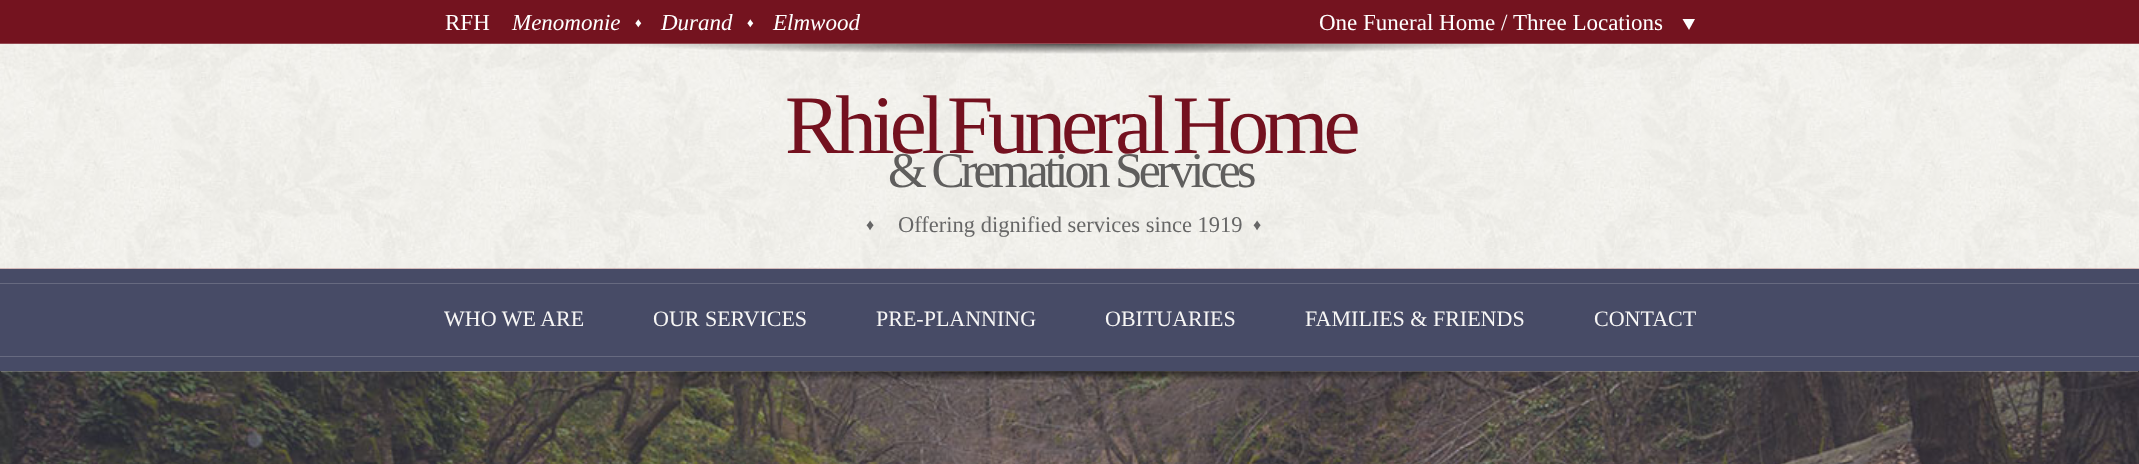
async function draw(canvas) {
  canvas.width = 2139;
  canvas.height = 464;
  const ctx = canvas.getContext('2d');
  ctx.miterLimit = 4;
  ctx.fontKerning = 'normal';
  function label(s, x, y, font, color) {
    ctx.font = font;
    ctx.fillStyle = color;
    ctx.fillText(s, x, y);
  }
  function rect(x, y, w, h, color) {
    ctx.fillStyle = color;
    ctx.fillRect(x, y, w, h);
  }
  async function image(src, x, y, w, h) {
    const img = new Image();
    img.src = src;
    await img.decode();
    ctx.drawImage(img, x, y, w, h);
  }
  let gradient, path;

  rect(0, 0, 2139, 464, '#fff');
  await image('assets/img1.png', 0, 371, 2139, 1);
  await image('assets/img2.png', 1, 371, 2137, 1);
  rect(0, 0, 2139, 269, '#74131f');
  label('RFH', 445, 30, '23px Liberation Serif', '#fff');
  label('Menomonie', 512, 30, 'italic 23px Liberation Serif', '#fff');
  ctx.letterSpacing = '10px';
  label('♦', 635, 27, '13px Liberation Serif', '#fff');
  ctx.letterSpacing = '0px';
  label('Durand', 661, 30, 'italic 23px Liberation Serif', '#fff');
  ctx.letterSpacing = '10px';
  label('♦', 747, 27, '13px Liberation Serif', '#fff');
  ctx.letterSpacing = '0px';
  label('Elmwood', 773, 30, 'italic 23px Liberation Serif', '#fff');
  label('One Funeral Home /', 1319, 30, '23px Liberation Serif', '#fff');
  label('Three Locations', 1513, 30, '23px Liberation Serif', '#fff');
  path = new Path2D('M1682.5 19H1695L1689 30Z');
  ctx.fill(path);
  await image('assets/img3.png', 0, 43, 2139, 226);
  ctx.letterSpacing = '-5.2px';
  ctx.wordSpacing = '-8px';
  label('Rhiel Funeral Home', 785, 153, '83.25px Liberation Serif', '#74111f');
  ctx.letterSpacing = '-4px';
  ctx.wordSpacing = '0px';
  label('& Cremation Services', 888, 187, '50px Liberation Serif', '#5f5e5d');
  ctx.letterSpacing = '13px';
  label('♦', 866, 230, '16px Liberation Serif', '#666');
  ctx.letterSpacing = '0px';
  label('Offering dignified services since 1919', 898, 232, '22.5px Liberation Serif', '#666');
  ctx.letterSpacing = '13px';
  label('♦', 1253, 230, '16px Liberation Serif', '#666');
  rect(0, 269, 2139, 102, '#474b66');
  rect(0, 283, 2139, 1, '#676a80');
  rect(0, 356, 2139, 1, '#676a80');
  ctx.letterSpacing = '0px';
  label('WHO WE ARE', 444, 326, '22px Liberation Serif', '#f7f6f5');
  label('OUR SERVICES', 653, 326, '22px Liberation Serif', '#f7f6f5');
  label('PRE-PLANNING', 876, 326, '22px Liberation Serif', '#f7f6f5');
  label('OBITUARIES', 1105, 326, '22px Liberation Serif', '#f7f6f5');
  label('FAMILIES & FRIENDS', 1305, 326, '22px Liberation Serif', '#f7f6f5');
  label('CONTACT', 1594, 326, '22px Liberation Serif', '#f7f6f5');
  await image('assets/img4.png', 0, 371, 2139, 93);
  gradient = ctx.createRadialGradient(1070, 19848.5, 0, 1070, 19848.5, 535);
  gradient.addColorStop(0, '#000000a6');
  gradient.addColorStop(1, '#00000000');
  ctx.fillStyle = gradient;
  ctx.beginPath();
  ctx.rect(551, 371, 1038, 10);
  ctx.save();
  ctx.clip();
  ctx.scale(1, 10 / 535);
  ctx.fillRect(0, 0, 2139, 24824);
  ctx.restore();
}

draw(document.querySelector('canvas'));
